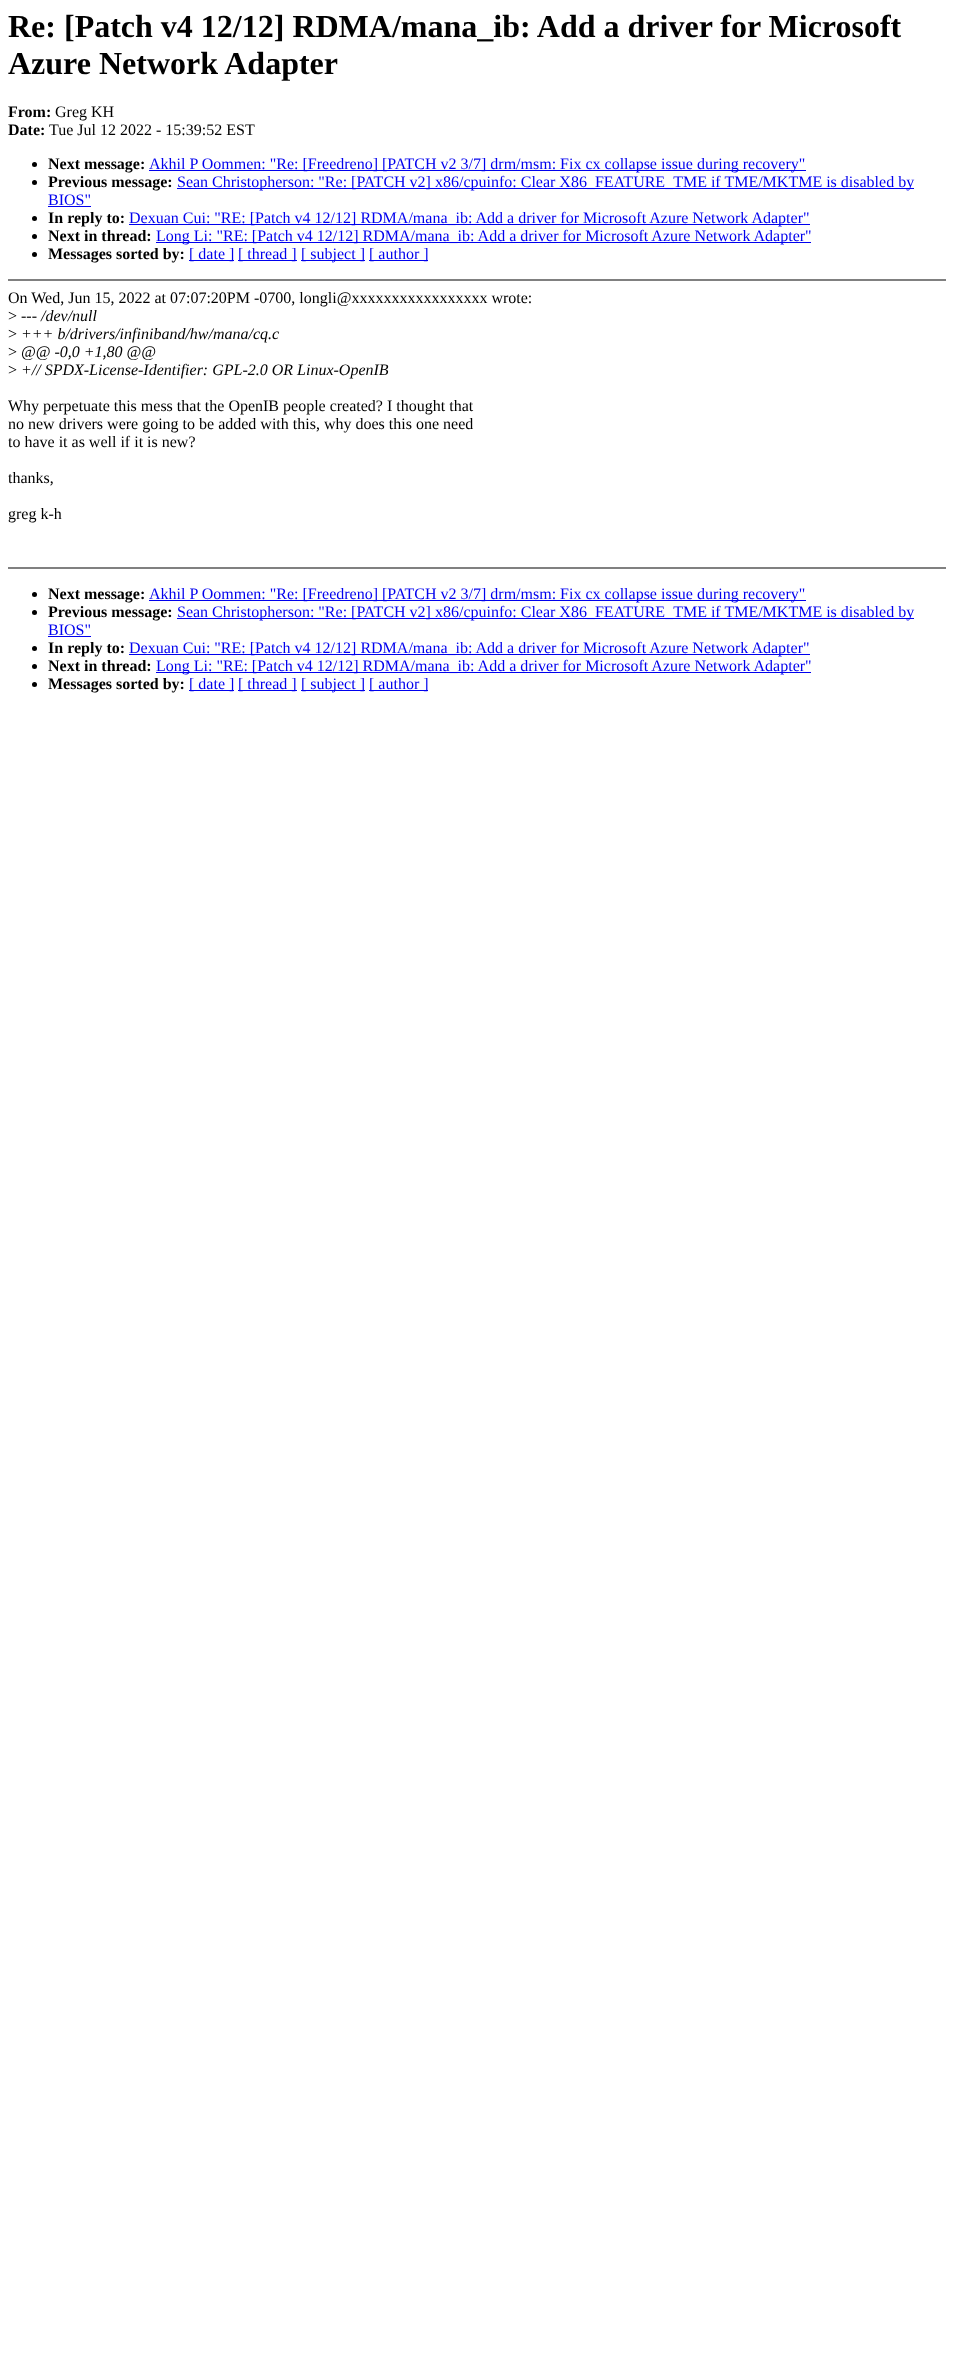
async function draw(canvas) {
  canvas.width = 954;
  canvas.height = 2369;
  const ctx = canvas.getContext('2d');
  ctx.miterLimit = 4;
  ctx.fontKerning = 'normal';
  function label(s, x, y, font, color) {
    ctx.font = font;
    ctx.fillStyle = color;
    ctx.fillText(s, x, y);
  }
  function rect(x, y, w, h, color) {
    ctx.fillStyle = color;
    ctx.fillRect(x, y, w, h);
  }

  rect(0, 0, 954, 2369, '#fff');
  label('Re: [Patch v4 12/12] RDMA/mana_ib: Add a driver for Microsoft', 8, 37, 'bold 32px Liberation Serif', '#000');
  label('Azure Network Adapter', 8, 74, 'bold 32px Liberation Serif', '#000');
  label('From:', 8, 117, 'bold 16px Liberation Serif', '#000');
  label('Greg KH', 55, 117, '16px Liberation Serif', '#000');
  label('Date:', 8, 135, 'bold 16px Liberation Serif', '#000');
  label('Tue Jul 12 2022 - 15:39:52 EST', 49, 135, '16px Liberation Serif', '#000');
  ctx.beginPath();
  ctx.arc(34.5, 164.5, 2.5, 0, 2 * Math.PI);
  ctx.fill();
  label('Next message:', 48, 169, 'bold 16px Liberation Serif', '#000');
  rect(149, 170, 657, 1, '#00e');
  label('Akhil P Oommen: "Re: [Freedreno] [PATCH v2 3/7] drm/msm: Fix cx collapse issue during recovery"', 149, 169, '16px Liberation Serif', '#00e');
  ctx.fillStyle = '#000';
  ctx.beginPath();
  ctx.arc(34.5, 182.5, 2.5, 0, 2 * Math.PI);
  ctx.fill();
  label('Previous message:', 48, 187, 'bold 16px Liberation Serif', '#000');
  rect(177, 188, 737, 1, '#00e');
  label('Sean Christopherson: "Re: [PATCH v2] x86/cpuinfo: Clear X86_FEATURE_TME if TME/MKTME is disabled by', 177, 187, '16px Liberation Serif', '#00e');
  label('BIOS"', 48, 205, '16px Liberation Serif', '#00e');
  rect(48, 206, 43, 1, '#00e');
  ctx.fillStyle = '#000';
  ctx.beginPath();
  ctx.arc(34.5, 218.5, 2.5, 0, 2 * Math.PI);
  ctx.fill();
  label('In reply to:', 48, 223, 'bold 16px Liberation Serif', '#000');
  rect(129, 224, 681, 1, '#00e');
  label('Dexuan Cui: "RE: [Patch v4 12/12] RDMA/mana_ib: Add a driver for Microsoft Azure Network Adapter"', 129, 223, '16px Liberation Serif', '#00e');
  ctx.fillStyle = '#000';
  ctx.beginPath();
  ctx.arc(34.5, 236.5, 2.5, 0, 2 * Math.PI);
  ctx.fill();
  label('Next in thread:', 48, 241, 'bold 16px Liberation Serif', '#000');
  rect(156, 242, 655, 1, '#00e');
  label('Long Li: "RE: [Patch v4 12/12] RDMA/mana_ib: Add a driver for Microsoft Azure Network Adapter"', 156, 241, '16px Liberation Serif', '#00e');
  ctx.fillStyle = '#000';
  ctx.beginPath();
  ctx.arc(34.5, 254.5, 2.5, 0, 2 * Math.PI);
  ctx.fill();
  label('Messages sorted by:', 48, 259, 'bold 16px Liberation Serif', '#000');
  rect(189, 260, 45, 1, '#00e');
  label('[ date ]', 189, 259, '16px Liberation Serif', '#00e');
  rect(238, 260, 59, 1, '#00e');
  label('[ thread ]', 238, 259, '16px Liberation Serif', '#00e');
  rect(301, 260, 64, 1, '#00e');
  label('[ subject ]', 301, 259, '16px Liberation Serif', '#00e');
  rect(369, 260, 59, 1, '#00e');
  label('[ author ]', 369, 259, '16px Liberation Serif', '#00e');
  rect(8, 279, 938, 2, '#808080');
  label('On Wed, Jun 15, 2022 at 07:07:20PM -0700, longli@xxxxxxxxxxxxxxxxx wrote:', 8, 303, '16px Liberation Serif', '#000');
  label('>', 8, 321, '16px Liberation Serif', '#000');
  label('--- /dev/null', 21, 321, 'italic 16px Liberation Serif', '#000');
  label('>', 8, 339, '16px Liberation Serif', '#000');
  label('+++ b/drivers/infiniband/hw/mana/cq.c', 21, 339, 'italic 16px Liberation Serif', '#000');
  label('>', 8, 357, '16px Liberation Serif', '#000');
  label('@@ -0,0 +1,80 @@', 21, 357, 'italic 16px Liberation Serif', '#000');
  label('>', 8, 375, '16px Liberation Serif', '#000');
  label('+// SPDX-License-Identifier: GPL-2.0 OR Linux-OpenIB', 21, 375, 'italic 16px Liberation Serif', '#000');
  label('Why perpetuate this mess that the OpenIB people created? I thought that', 8, 411, '16px Liberation Serif', '#000');
  label('no new drivers were going to be added with this, why does this one need', 8, 429, '16px Liberation Serif', '#000');
  label('to have it as well if it is new?', 8, 447, '16px Liberation Serif', '#000');
  label('thanks,', 8, 483, '16px Liberation Serif', '#000');
  label('greg k-h', 8, 519, '16px Liberation Serif', '#000');
  rect(8, 567, 938, 2, '#808080');
  ctx.fillStyle = '#000';
  ctx.beginPath();
  ctx.arc(34.5, 594.5, 2.5, 0, 2 * Math.PI);
  ctx.fill();
  label('Next message:', 48, 599, 'bold 16px Liberation Serif', '#000');
  rect(149, 600, 657, 1, '#00e');
  label('Akhil P Oommen: "Re: [Freedreno] [PATCH v2 3/7] drm/msm: Fix cx collapse issue during recovery"', 149, 599, '16px Liberation Serif', '#00e');
  ctx.fillStyle = '#000';
  ctx.beginPath();
  ctx.arc(34.5, 612.5, 2.5, 0, 2 * Math.PI);
  ctx.fill();
  label('Previous message:', 48, 617, 'bold 16px Liberation Serif', '#000');
  rect(177, 618, 737, 1, '#00e');
  label('Sean Christopherson: "Re: [PATCH v2] x86/cpuinfo: Clear X86_FEATURE_TME if TME/MKTME is disabled by', 177, 617, '16px Liberation Serif', '#00e');
  label('BIOS"', 48, 635, '16px Liberation Serif', '#00e');
  rect(48, 636, 43, 1, '#00e');
  ctx.fillStyle = '#000';
  ctx.beginPath();
  ctx.arc(34.5, 648.5, 2.5, 0, 2 * Math.PI);
  ctx.fill();
  label('In reply to:', 48, 653, 'bold 16px Liberation Serif', '#000');
  rect(129, 654, 681, 1, '#00e');
  label('Dexuan Cui: "RE: [Patch v4 12/12] RDMA/mana_ib: Add a driver for Microsoft Azure Network Adapter"', 129, 653, '16px Liberation Serif', '#00e');
  ctx.fillStyle = '#000';
  ctx.beginPath();
  ctx.arc(34.5, 666.5, 2.5, 0, 2 * Math.PI);
  ctx.fill();
  label('Next in thread:', 48, 671, 'bold 16px Liberation Serif', '#000');
  rect(156, 672, 655, 1, '#00e');
  label('Long Li: "RE: [Patch v4 12/12] RDMA/mana_ib: Add a driver for Microsoft Azure Network Adapter"', 156, 671, '16px Liberation Serif', '#00e');
  ctx.fillStyle = '#000';
  ctx.beginPath();
  ctx.arc(34.5, 684.5, 2.5, 0, 2 * Math.PI);
  ctx.fill();
  label('Messages sorted by:', 48, 689, 'bold 16px Liberation Serif', '#000');
  rect(189, 690, 45, 1, '#00e');
  label('[ date ]', 189, 689, '16px Liberation Serif', '#00e');
  rect(238, 690, 59, 1, '#00e');
  label('[ thread ]', 238, 689, '16px Liberation Serif', '#00e');
  rect(301, 690, 64, 1, '#00e');
  label('[ subject ]', 301, 689, '16px Liberation Serif', '#00e');
  rect(369, 690, 59, 1, '#00e');
  label('[ author ]', 369, 689, '16px Liberation Serif', '#00e');
}

draw(document.querySelector('canvas'));
